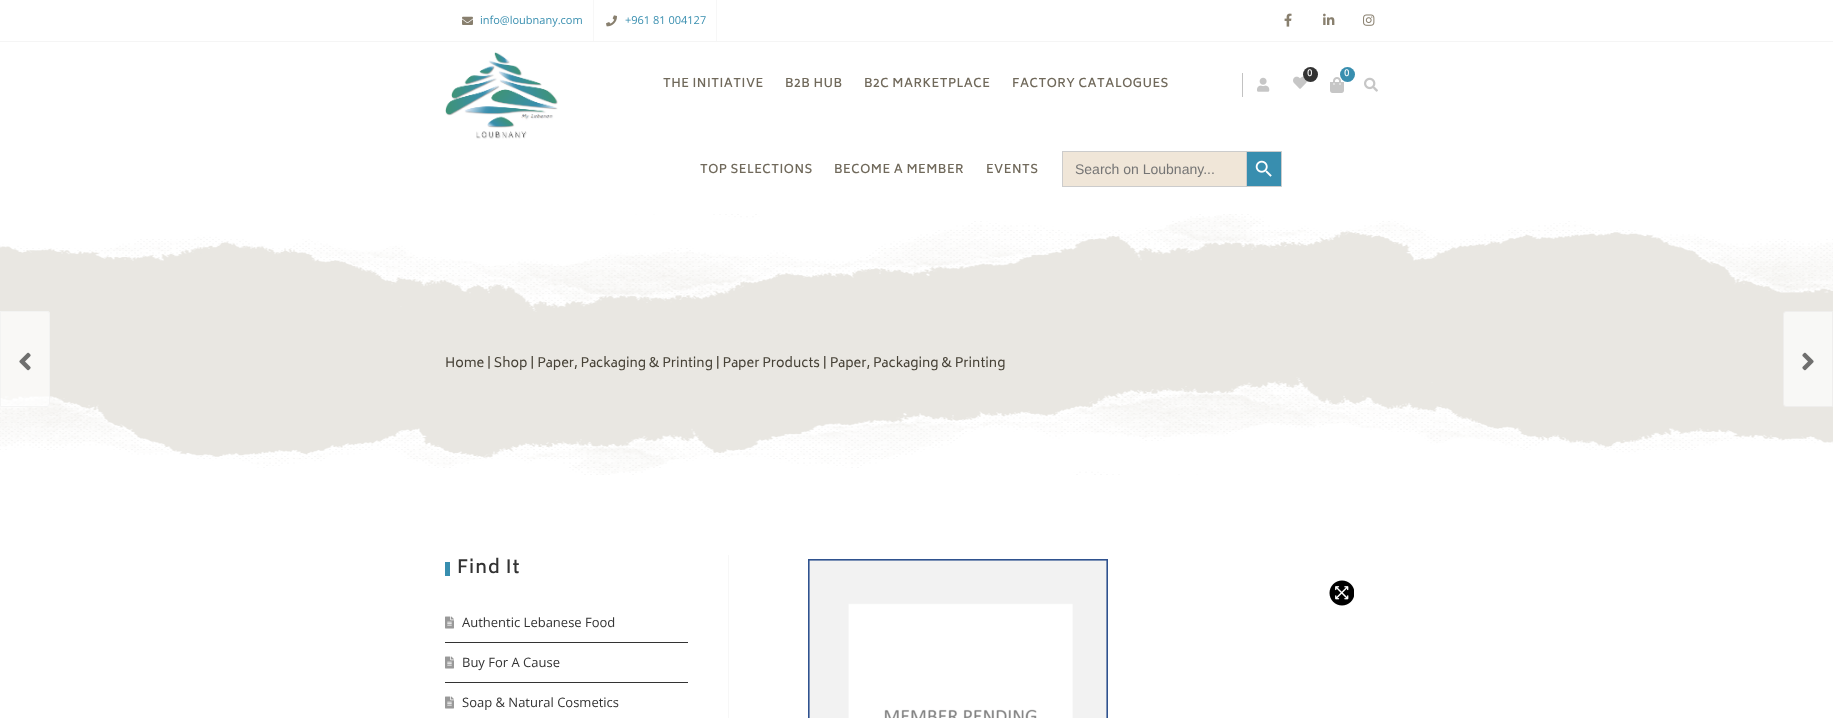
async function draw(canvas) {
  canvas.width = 1833;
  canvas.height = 718;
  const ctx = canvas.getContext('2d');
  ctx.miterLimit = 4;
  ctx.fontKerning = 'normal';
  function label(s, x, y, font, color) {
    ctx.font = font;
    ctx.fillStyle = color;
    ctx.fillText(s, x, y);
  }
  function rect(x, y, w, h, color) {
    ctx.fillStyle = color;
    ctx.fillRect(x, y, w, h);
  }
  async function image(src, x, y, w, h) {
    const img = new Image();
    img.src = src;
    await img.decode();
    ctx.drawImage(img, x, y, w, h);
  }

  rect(0, 0, 1833, 718, '#fff');
  rect(0, 41, 1833, 1, '#f5f5f5');
  rect(593, 0, 1, 41, '#f7f7f7');
  await image('assets/img1.png', 462, 16, 11, 9);
  label('info@loubnany.com', 480, 24, '11px Open Sans', '#388eaf');
  rect(716, 0, 1, 41, '#f7f7f7');
  await image('assets/img2.png', 606, 15, 11, 12);
  label('+961 81 004127', 625, 24, '11px Open Sans', '#388eaf');
  await image('assets/img3.png', 1284, 13, 8, 14);
  await image('assets/img4.png', 1323, 13, 12, 12);
  await image('assets/img5.png', 1363, 14, 12, 12);
  await image('assets/img6.png', 445, 52, 113, 87);
  rect(1242, 73, 1, 24, '#c2c2c2');
  await image('assets/img7.png', 1257, 77, 13, 15);
  await image('assets/img8.png', 1293, 76, 14, 13);
  ctx.fillStyle = '#333';
  ctx.beginPath();
  ctx.arc(1310.5, 74.5, 7.5, 0, 2 * Math.PI);
  ctx.fill();
  label('0', 1307, 76, '10px Biryani', '#fff');
  await image('assets/img9.png', 1330, 77, 14, 16);
  ctx.fillStyle = '#388eaf';
  ctx.beginPath();
  ctx.arc(1347.5, 74.5, 7.5, 0, 2 * Math.PI);
  ctx.fill();
  label('0', 1344, 76, '10px Biryani', '#fff');
  await image('assets/img10.png', 1364, 77, 14, 15);
  ctx.letterSpacing = '0.5px';
  label('THE INITIATIVE', 663, 87, '600 12px Biryani', '#70695b');
  label('B2B HUB', 785, 87, '600 12px Biryani', '#70695b');
  label('B2C MARKETPLACE', 864, 87, '600 12px Biryani', '#70695b');
  label('FACTORY CATALOGUES', 1012, 87, '600 12px Biryani', '#70695b');
  label('TOP SELECTIONS', 700, 173, '600 12px Biryani', '#70695b');
  label('BECOME A MEMBER', 834, 173, '600 12px Biryani', '#70695b');
  label('EVENTS', 986, 173, '600 12px Biryani', '#70695b');
  rect(1063, 152, 183, 34, '#f0e6d8');
  rect(1062, 151, 185, 1, '#ccc');
  rect(1062, 186, 185, 1, '#ccc');
  rect(1062, 151, 1, 36, '#ccc');
  ctx.letterSpacing = '0px';
  label('Search on Loubnany...', 1075, 174, '14px Liberation Sans', '#757575');
  ctx.fillStyle = '#388eaf';
  ctx.beginPath();
  ctx.rect(1246.5, 151.5, 35, 35);
  ctx.fill();
  ctx.strokeStyle = '#ccc';
  ctx.stroke();
  await image('assets/img11.png', 1255, 160, 17, 17);
  rect(0, 214, 1833, 261, '#e9e7e2');
  await image('assets/img13.png', 0, 214, 1833, 98);
  await image('assets/img14.png', 0, 377, 1833, 98);
  ctx.fillStyle = '#ffffffb3';
  ctx.beginPath();
  ctx.roundRect(0, 311, 50, 96, [0, 3, 3, 0]);
  ctx.fill();
  ctx.beginPath();
  ctx.roundRect(0.5, 311.5, 49, 95, [0, 2.5, 2.5, 0]);
  ctx.strokeStyle = '#f1f1f1b3';
  ctx.stroke();
  await image('assets/img12.png', 19, 352, 12, 19);
  label('Home | Shop | Paper, Packaging & Printing | Paper Products | Paper, Packaging & Printing', 445, 367, '13px Biryani', '#474237');
  rect(445, 562, 5, 14, '#388eaf');
  ctx.letterSpacing = '1px';
  label('Find It', 457, 573, '600 18px Biryani', '#333');
  rect(445, 642, 243, 1, '#333');
  await image('assets/img15.png', 445, 616, 9, 13);
  ctx.letterSpacing = '0px';
  label('Authentic Lebanese Food', 462, 627, '13px Open Sans', '#333');
  rect(445, 682, 243, 1, '#333');
  await image('assets/img15.png', 445, 656, 9, 13);
  label('Buy For A Cause', 462, 667, '13px Open Sans', '#333');
  await image('assets/img15.png', 445, 696, 9, 13);
  label('Soap & Natural Cosmetics', 462, 707, '13px Open Sans', '#333');
  rect(728, 555, 1, 163, '#f7f7f7');
  await image('assets/img16.png', 808, 559, 300, 159);
  await image('assets/img17.png', 1329, 580, 25, 26);
  ctx.fillStyle = '#f8f8f6';
  ctx.beginPath();
  ctx.roundRect(1783.5, 311.5, 49, 95, [2.5, 0, 0, 2.5]);
  ctx.fill();
  ctx.strokeStyle = '#efeeed';
  ctx.stroke();
  await image('assets/img18.png', 1802, 352, 12, 19);
}

draw(document.querySelector('canvas'));
